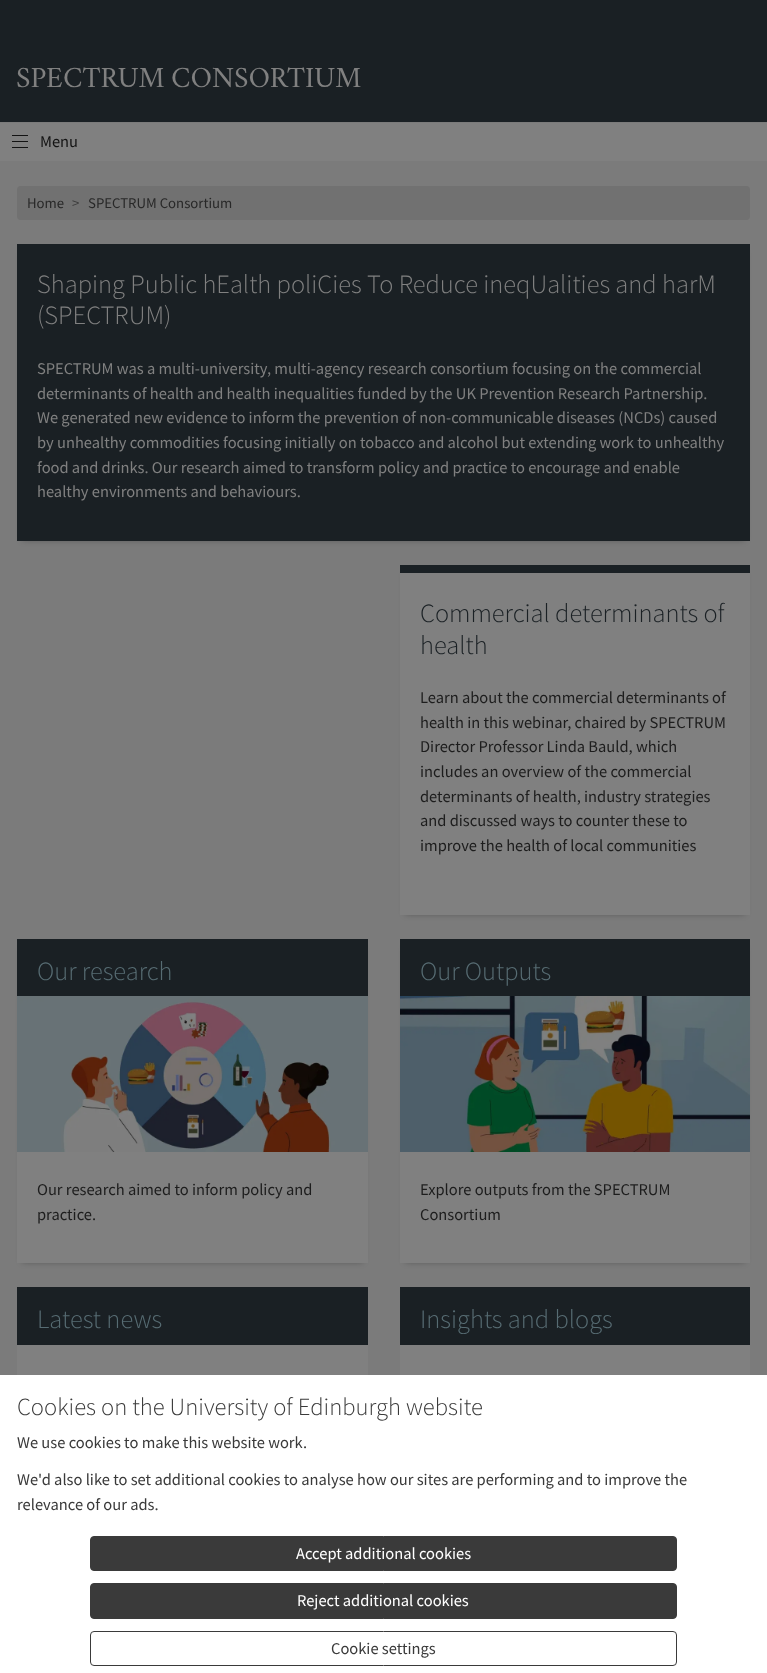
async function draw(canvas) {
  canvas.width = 767;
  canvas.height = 1673;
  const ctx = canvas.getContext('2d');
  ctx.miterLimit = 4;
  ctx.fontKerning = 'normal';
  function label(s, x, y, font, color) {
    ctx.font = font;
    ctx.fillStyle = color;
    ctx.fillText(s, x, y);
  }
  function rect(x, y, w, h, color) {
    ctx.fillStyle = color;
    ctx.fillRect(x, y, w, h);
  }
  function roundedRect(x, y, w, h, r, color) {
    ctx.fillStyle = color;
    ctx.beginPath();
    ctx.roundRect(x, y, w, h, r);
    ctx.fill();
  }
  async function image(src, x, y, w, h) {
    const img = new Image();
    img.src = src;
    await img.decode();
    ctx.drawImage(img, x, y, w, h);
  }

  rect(0, 0, 767, 1673, '#7b7b7b');
  rect(0, 0, 767, 122, '#1a2024');
  label('SPECTRUM CONSORTIUM', 16, 87, '29.5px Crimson', '#808080');
  rect(0, 123, 767, 38, '#808080');
  rect(12, 141, 16, 1, '#131313');
  rect(12, 135, 16, 1, '#131313');
  rect(12, 147, 16, 1, '#131313');
  label('Menu', 40, 147, '16.45px Source Sans Pro', '#131313');
  roundedRect(17, 186, 733, 34, 4, '#717171');
  label('Home', 27, 208, '14.75px Source Sans Pro', '#282828');
  label('>', 72, 208, '14.75px Source Sans Pro', '#3a3a3a');
  label('SPECTRUM Consortium', 88, 208, '14.75px Source Sans Pro', '#282828');
  ctx.fillStyle = '#0000004d';
  ctx.filter = 'blur(3px)';
  ctx.beginPath();
  ctx.rect(22, 253, 723, 287);
  ctx.fill();
  ctx.filter = 'none';
  rect(17, 244, 733, 297, '#1a2024');
  label('Shaping Public hEalth poliCies To Reduce ineqUalities and harM', 37, 293, '300 26.4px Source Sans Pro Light', '#808080');
  label('(SPECTRUM)', 37, 324, '300 26.4px Source Sans Pro Light', '#808080');
  label('SPECTRUM was a multi-university, multi-agency research consortium focusing on the commercial', 37, 374, '16.45px Source Sans Pro', '#808080');
  label('determinants of health and health inequalities funded by the UK Prevention Research Partnership.', 37, 399, '16.45px Source Sans Pro', '#808080');
  label('We generated new evidence to inform the prevention of non-communicable diseases (NCDs) caused', 37, 423, '16.45px Source Sans Pro', '#808080');
  label('by unhealthy commodities focusing initially on tobacco and alcohol but extending work to unhealthy', 37, 448, '16.45px Source Sans Pro', '#808080');
  label('food and drinks. Our research aimed to transform policy and practice to encourage and enable', 37, 473, '16.45px Source Sans Pro', '#808080');
  label('healthy environments and behaviours.', 37, 497, '16.45px Source Sans Pro', '#808080');
  ctx.fillStyle = '#0000004d';
  ctx.filter = 'blur(3px)';
  ctx.beginPath();
  ctx.rect(405, 574, 340, 340);
  ctx.fill();
  ctx.filter = 'none';
  rect(400, 573, 350, 342, '#808080');
  rect(400, 565, 350, 8, '#1a2024');
  label('Commercial determinants of', 420, 622, '300 26.4px Source Sans Pro Light', '#1a2024');
  label('health', 420, 654, '300 26.4px Source Sans Pro Light', '#1a2024');
  label('Learn about the commercial determinants of', 420, 703, '16.45px Source Sans Pro', '#1d1d1d');
  label('health in this webinar, chaired by SPECTRUM', 420, 728, '16.45px Source Sans Pro', '#1d1d1d');
  label('Director Professor Linda Bauld, which', 420, 752, '16.45px Source Sans Pro', '#1d1d1d');
  label('includes an overview of the commercial', 420, 777, '16.45px Source Sans Pro', '#1d1d1d');
  label('determinants of health, industry strategies', 420, 802, '16.45px Source Sans Pro', '#1d1d1d');
  label('and discussed ways to counter these to', 420, 826, '16.45px Source Sans Pro', '#1d1d1d');
  label('improve the health of local communities', 420, 851, '16.45px Source Sans Pro', '#1d1d1d');
  ctx.fillStyle = '#0000004d';
  ctx.filter = 'blur(3px)';
  ctx.beginPath();
  ctx.rect(22, 948, 341, 314);
  ctx.fill();
  ctx.filter = 'none';
  rect(17, 1152, 351, 111, '#808080');
  rect(17, 939, 351, 57, '#1a2024');
  label('Our research', 37, 980, '300 26.4px Source Sans Pro Light', '#576c73');
  await image('assets/img1.png', 17, 996, 351, 156);
  label('Our research aimed to inform policy and', 37, 1195, '16.45px Source Sans Pro', '#1d1d1d');
  label('practice.', 37, 1220, '16.45px Source Sans Pro', '#1d1d1d');
  ctx.fillStyle = '#0000004d';
  ctx.filter = 'blur(3px)';
  ctx.beginPath();
  ctx.rect(405, 948, 340, 314);
  ctx.fill();
  ctx.filter = 'none';
  rect(400, 1152, 350, 111, '#808080');
  rect(400, 939, 350, 57, '#1a2024');
  label('Our Outputs', 420, 980, '300 26.4px Source Sans Pro Light', '#576c73');
  await image('assets/img2.png', 400, 996, 350, 156);
  label('Explore outputs from the SPECTRUM', 420, 1195, '16.45px Source Sans Pro', '#1d1d1d');
  label('Consortium', 420, 1220, '16.45px Source Sans Pro', '#1d1d1d');
  rect(17, 1345, 351, 30, '#808080');
  rect(17, 1287, 351, 58, '#1a2024');
  label('Latest news', 37, 1328, '300 26.4px Source Sans Pro Light', '#576c73');
  rect(400, 1345, 350, 30, '#808080');
  rect(400, 1287, 350, 58, '#1a2024');
  label('Insights and blogs', 420, 1328, '300 26.4px Source Sans Pro Light', '#576c73');
  rect(0, 1375, 767, 298, '#fff');
  label('Cookies on the University of Edinburgh website', 17, 1415, '300 24.6px Source Sans Pro Light', '#3a3a3a');
  label('We use cookies to make this website work.', 17, 1448, '16.45px Source Sans Pro', '#3a3a3a');
  label('We\'d also like to set additional cookies to analyse how our sites are performing and to improve the', 17, 1485, '16.45px Source Sans Pro', '#3a3a3a');
  label('relevance of our ads.', 17, 1510, '16.45px Source Sans Pro', '#3a3a3a');
  ctx.beginPath();
  ctx.roundRect(90.5, 1536.5, 586, 34, 3.5);
  ctx.fill();
  ctx.strokeStyle = '#3a3a3a';
  ctx.stroke();
  label('Accept additional cookies', 296, 1559, '16.45px Source Sans Pro', '#fff');
  ctx.fillStyle = '#3a3a3a';
  ctx.beginPath();
  ctx.roundRect(90.5, 1583.5, 586, 35, 3.5);
  ctx.fill();
  ctx.stroke();
  label('Reject additional cookies', 297, 1606, '16.45px Source Sans Pro', '#fff');
  ctx.beginPath();
  ctx.roundRect(90.5, 1631.5, 586, 34, 3.5);
  ctx.stroke();
  label('Cookie settings', 331, 1654, '16.45px Source Sans Pro', '#3a3a3a');
}

draw(document.querySelector('canvas'));
